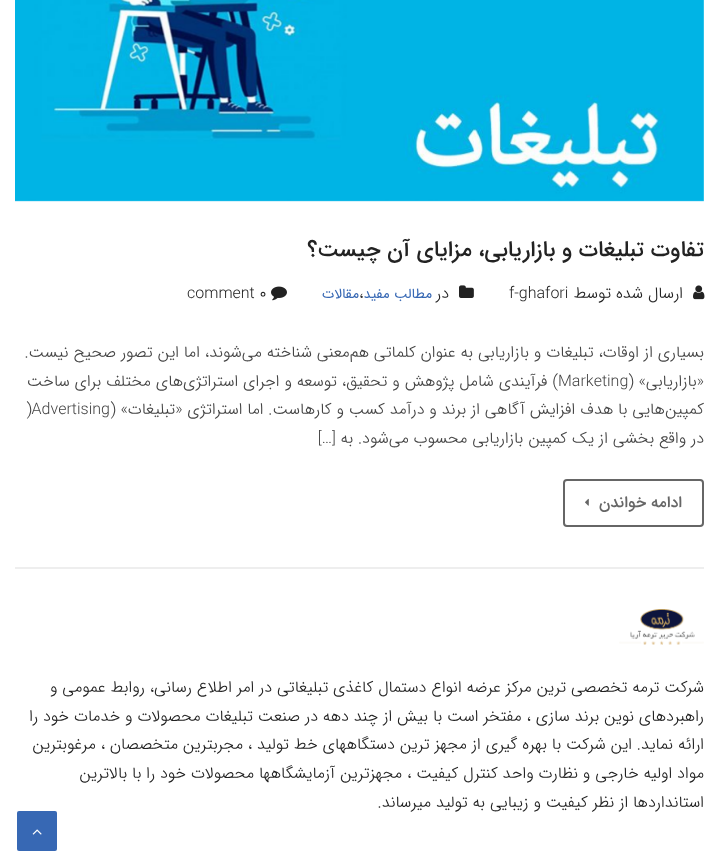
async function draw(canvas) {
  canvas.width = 719;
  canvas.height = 868;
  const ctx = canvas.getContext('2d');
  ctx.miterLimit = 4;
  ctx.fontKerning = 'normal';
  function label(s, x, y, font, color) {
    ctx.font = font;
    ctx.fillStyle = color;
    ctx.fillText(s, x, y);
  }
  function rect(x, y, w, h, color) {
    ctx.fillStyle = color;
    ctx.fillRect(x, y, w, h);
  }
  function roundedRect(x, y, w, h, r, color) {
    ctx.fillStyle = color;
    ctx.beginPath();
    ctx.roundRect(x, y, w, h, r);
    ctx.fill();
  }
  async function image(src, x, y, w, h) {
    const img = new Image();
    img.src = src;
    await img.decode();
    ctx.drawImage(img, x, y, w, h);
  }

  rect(0, 0, 719, 868, '#fff');
  rect(15, 567, 689, 2, '#eee');
  await image('assets/img1.png', 15, 0, 689, 202);
  ctx.direction = 'rtl';
  label('تفاوت تبلیغات و بازاریابی، مزایای آن چیست؟', 704, 256, '500 22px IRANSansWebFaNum', '#222');
  await image('assets/img2.png', 693, 285, 12, 15);
  label('ارسال شده توسط', 683, 298, '300 16px IRANSansWebFaNum', '#222');
  ctx.direction = 'ltr';
  label('f-ghafori', 509, 298, '300 16px IRANSansWebFaNum', '#222');
  await image('assets/img3.png', 459, 285, 15, 13);
  ctx.direction = 'rtl';
  label('در', 449, 298, '300 16px IRANSansWebFaNum', '#222');
  label('مطالب مفید', 432, 298, '14px IRANSansWebFaNum', '#3768b4');
  ctx.direction = 'ltr';
  label('،', 359, 298, '300 16px IRANSansWebFaNum', '#222');
  ctx.direction = 'rtl';
  label('مقالات', 359, 298, '14px IRANSansWebFaNum', '#3768b4');
  await image('assets/img4.png', 271, 286, 16, 15);
  ctx.direction = 'ltr';
  label('comment ۰', 187, 298, '300 16px IRANSansWebFaNum', '#222');
  ctx.direction = 'rtl';
  label('بسیاری از اوقات، تبلیغات و بازاریابی به عنوان کلماتی هم‌معنی شناخته می‌شوند، اما این تصور صحیح نیست.', 704, 357, '300 16px IRANSansWebFaNum', '#444');
  label('«بازاریابی» (', 704, 386, '300 16px IRANSansWebFaNum', '#444');
  ctx.direction = 'ltr';
  label('Marketing', 558, 386, '300 16px IRANSansWebFaNum', '#444');
  ctx.direction = 'rtl';
  label(') فرآیندی شامل پژوهش و تحقیق، توسعه و اجرای استراتژی‌های مختلف برای ساخت', 558, 386, '300 16px IRANSansWebFaNum', '#444');
  label('کمپین‌هایی با هدف افزایش آگاهی از برند و درآمد کسب و کارهاست. اما استراتژی «تبلیغات» (', 704, 414, '300 16px IRANSansWebFaNum', '#444');
  ctx.direction = 'ltr';
  label(')Advertising', 26, 414, '300 16px IRANSansWebFaNum', '#444');
  ctx.direction = 'rtl';
  label('در واقع بخشی از یک کمپین بازاریابی محسوب می‌شود. به […]', 704, 443, '300 16px IRANSansWebFaNum', '#444');
  ctx.beginPath();
  ctx.roundRect(564, 480, 139, 46, 3);
  ctx.strokeStyle = '#666';
  ctx.lineWidth = 2;
  ctx.stroke();
  label('ادامه خواندن', 682, 507, '500 16px IRANSansWebFaNum', '#666');
  await image('assets/img5.png', 585, 498, 4, 8);
  await image('assets/img6.png', 619, 609, 85, 36);
  label('شرکت ترمه تخصصی ترین مرکز عرضه انواع دستمال کاغذی تبلیغاتی در امر اطلاع رسانی، روابط عمومی و', 704, 692, '300 16px IRANSansWebFaNum', '#222');
  label('راهبردهای نوین برند سازی ، مفتخر است با بیش از چند دهه در صنعت تبلیغات محصولات و خدمات خود را', 704, 721, '300 16px IRANSansWebFaNum', '#222');
  label('ارائه نماید. این شرکت با بهره گیری از مجهز ترین دستگاههای خط تولید ، مجربترین متخصصان ، مرغوبترین', 704, 749, '300 16px IRANSansWebFaNum', '#222');
  label('مواد اولیه خارجی و نظارت واحد کنترل کیفیت ، مجهزترین آزمایشگاهها محصولات خود را با بالاترین', 704, 778, '300 16px IRANSansWebFaNum', '#222');
  label('استانداردها از نظر کیفیت و زیبایی به تولید میرساند.', 704, 807, '300 16px IRANSansWebFaNum', '#222');
  roundedRect(17, 811, 40, 40, 2, '#3768b4');
  await image('assets/img7.png', 32, 829, 10, 6);
}

draw(document.querySelector('canvas'));
